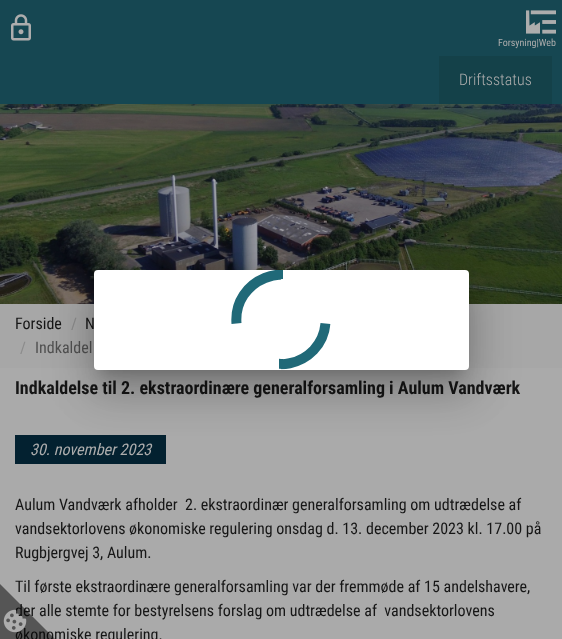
async function draw(canvas) {
  canvas.width = 562;
  canvas.height = 639;
  const ctx = canvas.getContext('2d');
  ctx.miterLimit = 4;
  ctx.fontKerning = 'normal';
  function label(s, x, y, font, color) {
    ctx.font = font;
    ctx.fillStyle = color;
    ctx.fillText(s, x, y);
  }
  function rect(x, y, w, h, color) {
    ctx.fillStyle = color;
    ctx.fillRect(x, y, w, h);
  }
  function roundedRect(x, y, w, h, r, color) {
    ctx.fillStyle = color;
    ctx.beginPath();
    ctx.roundRect(x, y, w, h, r);
    ctx.fill();
  }
  async function image(src, x, y, w, h) {
    const img = new Image();
    img.src = src;
    await img.decode();
    ctx.drawImage(img, x, y, w, h);
  }
  let path;

  rect(0, 0, 562, 639, '#aaa');
  rect(0, 0, 562, 104, '#164752');
  await image('assets/img1.png', 11, 14, 20, 27);
  await image('assets/img2.png', 526, 10, 30, 24);
  label('Forsyning|Web', 498, 46, '10px Roboto Condensed', '#adadad');
  rect(439, 56, 113, 48, '#144149');
  label('Driftsstatus', 459, 85, '300 16px Roboto Condensed', '#adadad');
  await image('assets/img3.png', 0, 104, 562, 200);
  rect(0, 304, 562, 64, '#a7a7a7');
  label('Forside', 15, 329, '16px Roboto Condensed', '#161616');
  label('/', 71, 329, '16px Roboto Condensed', '#8b8b8b');
  label('N', 85, 329, '16px Roboto Condensed', '#161616');
  label('/', 20, 353, '16px Roboto Condensed', '#8b8b8b');
  label('Indkaldel', 35, 353, '16px Roboto Condensed', '#515151');
  label('Indkaldelse til 2. ekstraordinære generalforsamling i Aulum Vandværk', 15, 394, 'bold 18px Roboto Condensed', '#161616');
  rect(15, 435, 151, 29, '#032130');
  label('30. november 2023', 30, 455, 'italic 16px Roboto Condensed', '#adadad');
  label('Aulum Vandværk afholder  2. ekstraordinær generalforsamling om udtrædelse af', 15, 510, '16px Roboto Condensed', '#161616');
  label('vandsektorlovens økonomiske regulering onsdag d. 13. december 2023 kl. 17.00 på', 15, 534, '16px Roboto Condensed', '#161616');
  label('Rugbjergvej 3, Aulum.', 15, 558, '16px Roboto Condensed', '#161616');
  label('Til første ekstraordinære generalforsamling var der fremmøde af 15 andelshavere,', 15, 592, '16px Roboto Condensed', '#161616');
  label('der alle stemte for bestyrelsens forslag om udtrædelse af  vandsektorlovens', 15, 616, '16px Roboto Condensed', '#161616');
  label('økonomiske regulering.', 15, 640, '16px Roboto Condensed', '#161616');
  ctx.fillStyle = '#0000001f';
  ctx.filter = 'blur(23px)';
  ctx.beginPath();
  ctx.roundRect(86, 271, 391, 116, 12);
  ctx.fill();
  ctx.filter = 'none';
  ctx.fillStyle = '#00000024';
  ctx.filter = 'blur(19px)';
  ctx.beginPath();
  ctx.roundRect(91, 291, 381, 106, 7);
  ctx.fill();
  ctx.filter = 'none';
  ctx.fillStyle = '#00000033';
  ctx.filter = 'blur(7.5px)';
  ctx.beginPath();
  ctx.rect(101, 288, 361, 86);
  ctx.fill();
  ctx.filter = 'none';
  roundedRect(94, 270, 375, 100, 4, '#fff');
  ctx.save();
  ctx.beginPath();
  ctx.rect(231, 270, 50, 100);
  ctx.clip();
  path = new Path2D('M236.5 323.5C233 279.5 289 257 316.5 291C322 298 325.5 306.5 326.5 315.5');
  ctx.strokeStyle = '#206978';
  ctx.lineWidth = 10;
  ctx.stroke(path);
  ctx.restore();
  ctx.save();
  ctx.beginPath();
  ctx.rect(279, 270, 5, 100);
  ctx.clip();
  path = new Path2D('M283 364C239 364 221.5 306.5 258 281.5C265.5 276.5 274 274 283 274');
  ctx.strokeStyle = '#206978';
  ctx.lineWidth = 10;
  ctx.stroke(path);
  ctx.restore();
  ctx.save();
  ctx.beginPath();
  ctx.rect(281, 270, 50, 100);
  ctx.clip();
  path = new Path2D('M335 274L326.5 373.5L227 365L235.5 265.5Z');
  ctx.clip(path);
  path = new Path2D('M325.5 323.5C321.5 367 262.5 380 241 341.5C237 333.5 235 324.5 235.5 315.5');
  ctx.strokeStyle = '#206978';
  ctx.lineWidth = 10;
  ctx.stroke(path);
  ctx.restore();
  ctx.fillStyle = '#00000080';
  path = new Path2D('M0 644V584L60 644Z');
  ctx.fill(path);
  await image('assets/img4.png', 3, 609, 24, 24);
}

draw(document.querySelector('canvas'));
